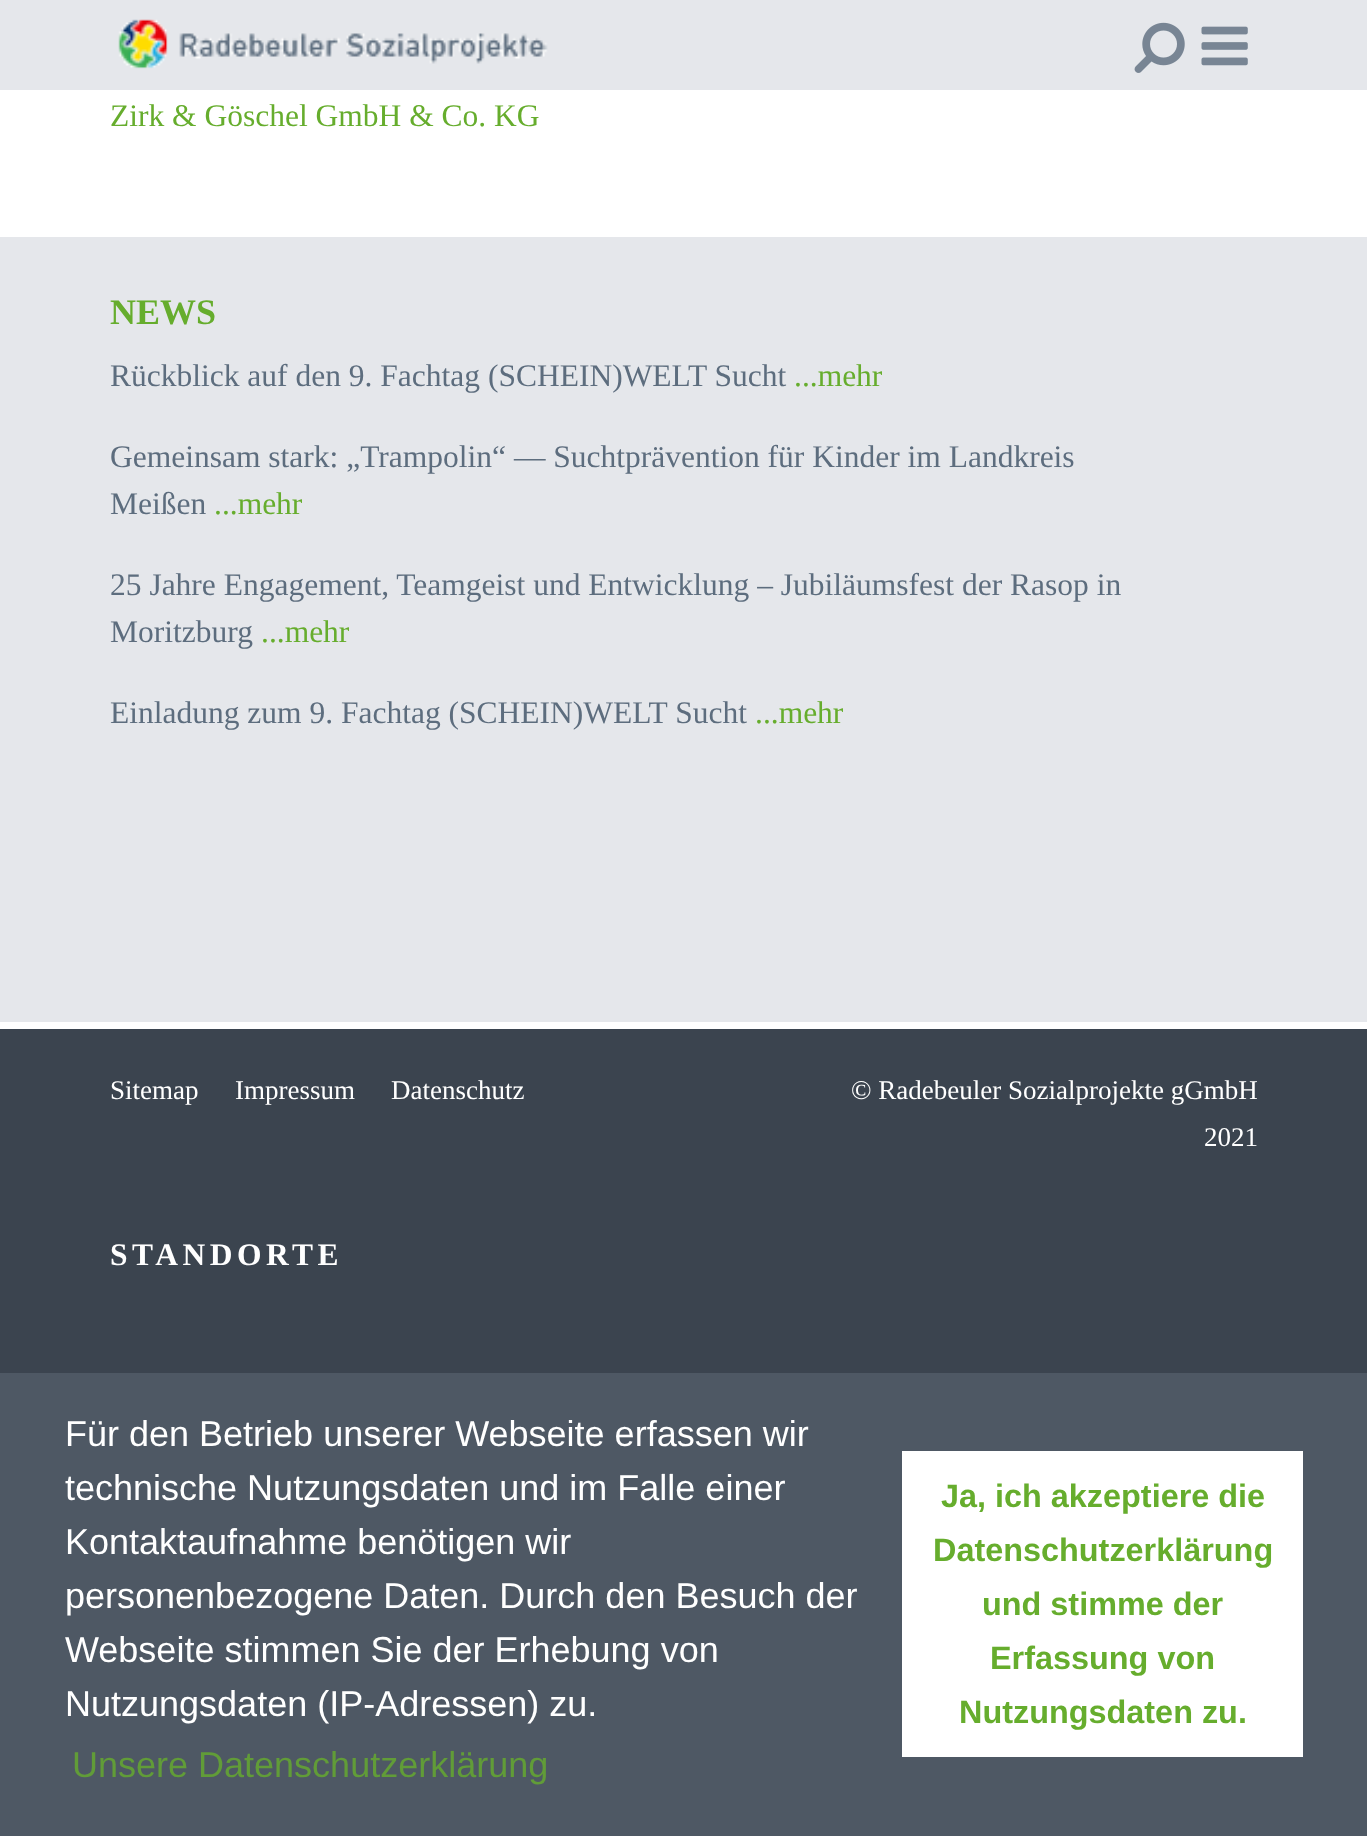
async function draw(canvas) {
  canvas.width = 1367;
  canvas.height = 1836;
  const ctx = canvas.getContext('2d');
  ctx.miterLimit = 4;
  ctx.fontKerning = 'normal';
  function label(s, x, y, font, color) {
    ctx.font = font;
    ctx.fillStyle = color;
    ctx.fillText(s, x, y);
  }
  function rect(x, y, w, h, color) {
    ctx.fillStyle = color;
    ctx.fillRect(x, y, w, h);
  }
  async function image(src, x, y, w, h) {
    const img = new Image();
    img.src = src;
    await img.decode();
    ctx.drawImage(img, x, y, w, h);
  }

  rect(0, 0, 1367, 1836, '#3b444f');
  rect(0, 0, 1367, 90, '#e5e7eb');
  await image('assets/img1.png', 118, 19, 430, 50);
  await image('assets/img2.png', 1134, 22, 51, 51);
  await image('assets/img3.png', 1201, 26, 47, 40);
  rect(0, 90, 1367, 147, '#fff');
  label('Zirk & Göschel GmbH & Co. KG', 110, 126, '31.5px Liberation Serif', '#66ad2d');
  rect(0, 237, 1367, 785, '#e5e7eb');
  rect(0, 1022, 1367, 7, '#fff');
  label('NEWS', 110, 324, 'bold 36px Liberation Serif', '#66ad2d');
  label('Rückblick auf den 9. Fachtag (SCHEIN)WELT Sucht', 110, 386, '31.5px Liberation Serif', '#5d6d7e');
  label('...mehr', 794, 386, '31.5px Liberation Serif', '#66ad2d');
  label('Gemeinsam stark: „Trampolin“ — Suchtprävention für Kinder im Landkreis', 110, 467, '31.5px Liberation Serif', '#5d6d7e');
  label('Meißen', 110, 514, '31.5px Liberation Serif', '#5d6d7e');
  label('...mehr', 214, 514, '31.5px Liberation Serif', '#66ad2d');
  label('25 Jahre Engagement, Teamgeist und Entwicklung – Jubiläumsfest der Rasop in', 110, 595, '31.5px Liberation Serif', '#5d6d7e');
  label('Moritzburg', 110, 642, '31.5px Liberation Serif', '#5d6d7e');
  label('...mehr', 261, 642, '31.5px Liberation Serif', '#66ad2d');
  label('Einladung zum 9. Fachtag (SCHEIN)WELT Sucht', 110, 723, '31.5px Liberation Serif', '#5d6d7e');
  label('...mehr', 755, 723, '31.5px Liberation Serif', '#66ad2d');
  label('Sitemap', 110, 1099, '27px Liberation Serif', '#fff');
  label('Impressum', 235, 1099, '27px Liberation Serif', '#fff');
  label('Datenschutz', 391, 1099, '27px Liberation Serif', '#fff');
  label('© Radebeuler Sozialprojekte gGmbH', 851, 1099, '27px Liberation Serif', '#fff');
  label('2021', 1204, 1146, '27px Liberation Serif', '#fff');
  ctx.letterSpacing = '4.5px';
  label('STANDORTE', 110, 1265, 'bold 31.5px Liberation Serif', '#fff');
  rect(0, 1373, 1367, 463, '#4e5864');
  ctx.letterSpacing = '0px';
  label('Für den Betrieb unserer Webseite erfassen wir', 65, 1446, '36px Liberation Sans', '#fff');
  label('technische Nutzungsdaten und im Falle einer', 65, 1500, '36px Liberation Sans', '#fff');
  label('Kontaktaufnahme benötigen wir', 65, 1554, '36px Liberation Sans', '#fff');
  label('personenbezogene Daten. Durch den Besuch der', 65, 1608, '36px Liberation Sans', '#fff');
  label('Webseite stimmen Sie der Erhebung von', 65, 1662, '36px Liberation Sans', '#fff');
  label('Nutzungsdaten (IP-Adressen) zu.', 65, 1716, '36px Liberation Sans', '#fff');
  label('Unsere Datenschutzerklärung', 72, 1777, '36px Liberation Sans', '#619c38');
  rect(902, 1451, 401, 306, '#fff');
  label('Ja, ich akzeptiere die', 941, 1507, 'bold 32.4px Liberation Sans', '#66ad2d');
  label('Datenschutzerklärung', 933, 1561, 'bold 32.4px Liberation Sans', '#66ad2d');
  label('und stimme der', 982, 1615, 'bold 32.4px Liberation Sans', '#66ad2d');
  label('Erfassung von', 990, 1669, 'bold 32.4px Liberation Sans', '#66ad2d');
  label('Nutzungsdaten zu.', 959, 1723, 'bold 32.4px Liberation Sans', '#66ad2d');
}

draw(document.querySelector('canvas'));
